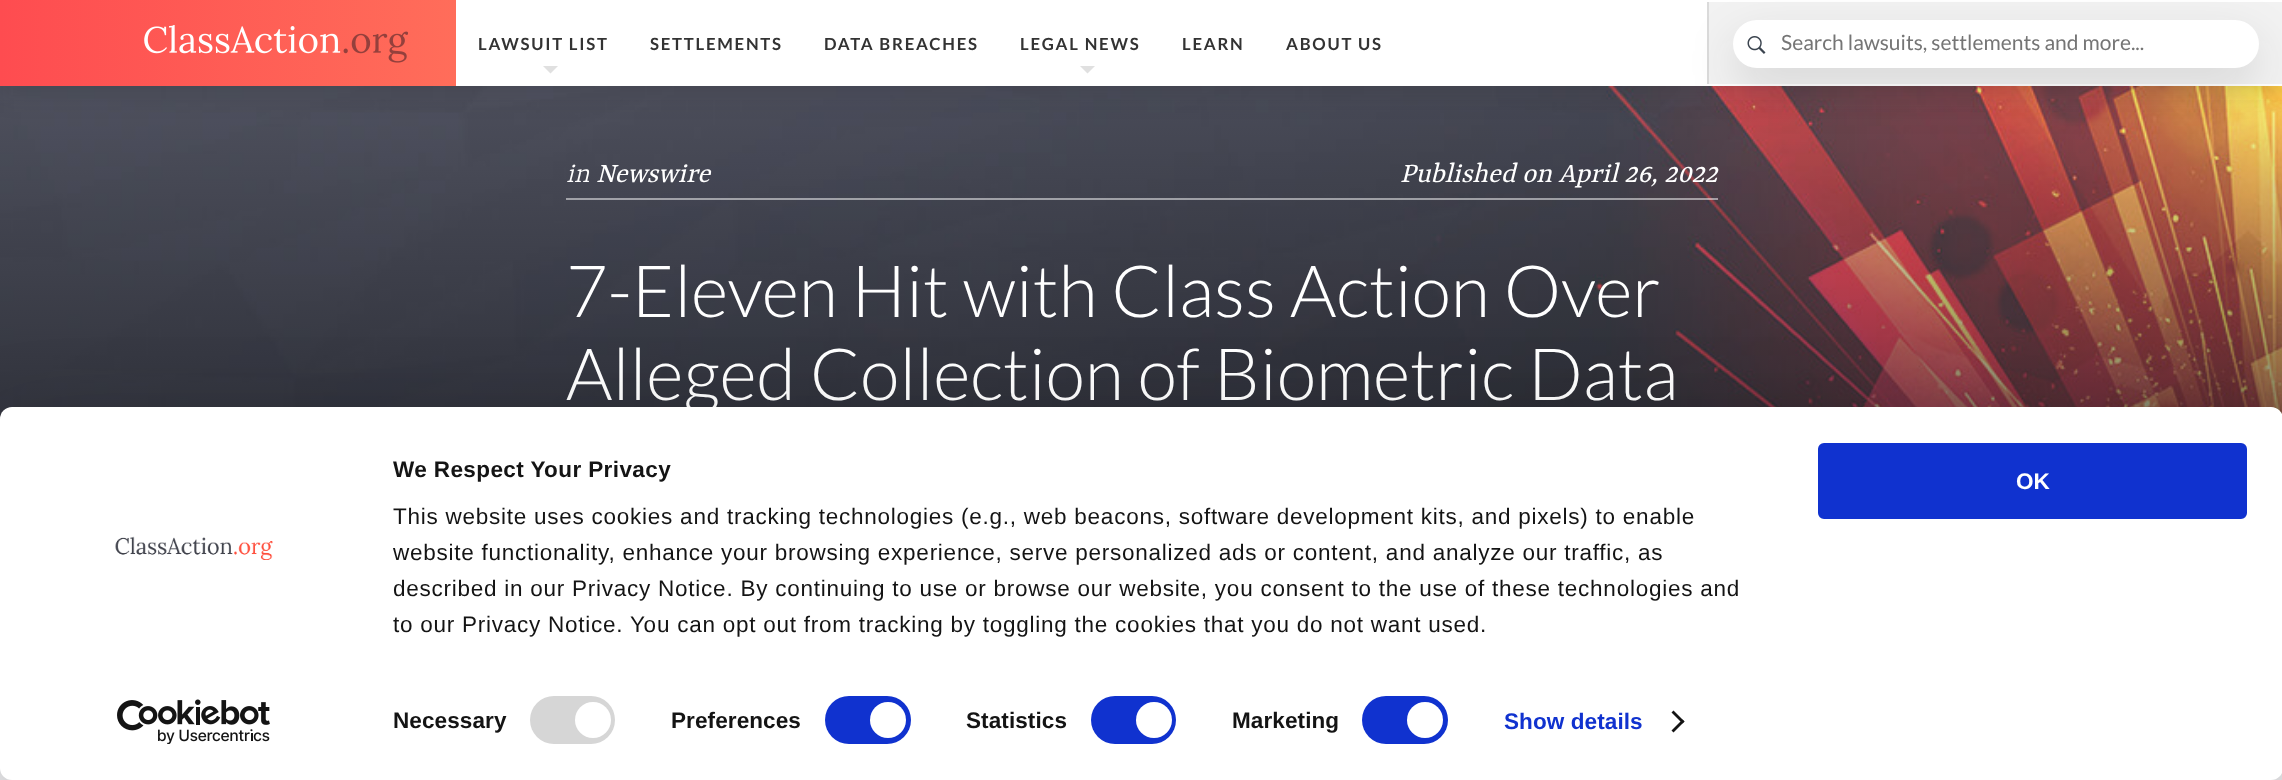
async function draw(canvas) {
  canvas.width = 2282;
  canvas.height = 780;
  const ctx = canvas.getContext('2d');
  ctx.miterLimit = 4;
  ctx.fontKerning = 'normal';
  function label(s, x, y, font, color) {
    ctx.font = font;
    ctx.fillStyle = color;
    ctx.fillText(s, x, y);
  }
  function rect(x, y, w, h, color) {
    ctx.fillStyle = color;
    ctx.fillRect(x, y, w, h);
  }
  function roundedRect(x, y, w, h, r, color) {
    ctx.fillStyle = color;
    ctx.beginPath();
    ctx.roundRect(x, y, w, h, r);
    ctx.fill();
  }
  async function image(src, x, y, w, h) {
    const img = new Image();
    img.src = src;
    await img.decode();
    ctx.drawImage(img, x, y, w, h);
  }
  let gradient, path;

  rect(0, 0, 2282, 780, '#fff');
  await image('assets/img3.png', 0, 85, 2282, 334);
  gradient = ctx.createLinearGradient(1142, 719, 1142, 86);
  gradient.addColorStop(0, '#181a20');
  gradient.addColorStop(1, '#181a2000');
  ctx.fillStyle = gradient;
  ctx.fillRect(0, 100, 2282, 319);
  ctx.save();
  path = new Path2D('M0 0H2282V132H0ZM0 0H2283V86H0Z');
  ctx.clip(path, 'evenodd');
  ctx.fillStyle = '#18181821';
  ctx.filter = 'blur(12px)';
  ctx.beginPath();
  ctx.rect(0, 9, 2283, 86);
  ctx.fill();
  ctx.filter = 'none';
  ctx.restore();
  rect(456, 85, 1826, 1, '#fffffff7');
  gradient = ctx.createLinearGradient(0, 43, 456, 43);
  gradient.addColorStop(0, '#fe4c50');
  gradient.addColorStop(1, '#ff6d5a');
  ctx.fillStyle = gradient;
  ctx.fillRect(0, 0, 456, 86);
  await image('assets/img1.png', 144, 25, 264, 38);
  ctx.letterSpacing = '1.75px';
  label('LAWSUIT LIST', 478, 50, 'bold 16.75px Lato', '#333');
  ctx.fillStyle = '#e0e0e0';
  path = new Path2D('M543 66H558L550.5 73.5Z');
  ctx.fill(path);
  label('SETTLEMENTS', 650, 50, 'bold 16.75px Lato', '#333');
  label('DATA BREACHES', 824, 50, 'bold 16.75px Lato', '#333');
  label('LEGAL NEWS', 1020, 50, 'bold 16.75px Lato', '#333');
  ctx.fillStyle = '#e0e0e0';
  path = new Path2D('M1080 66H1095L1087.5 73.5Z');
  ctx.fill(path);
  label('LEARN', 1182, 50, 'bold 16.75px Lato', '#333');
  label('ABOUT US', 1286, 50, 'bold 16.75px Lato', '#333');
  rect(1709, 2, 573, 82, '#f2f2f2');
  rect(1707, 2, 2, 82, '#dadada');
  ctx.fillStyle = '#18181821';
  ctx.filter = 'blur(24px)';
  ctx.beginPath();
  ctx.roundRect(1733, 39, 526, 48, 24);
  ctx.fill();
  ctx.filter = 'none';
  roundedRect(1733, 20, 526, 48, 24, '#fff');
  await image('assets/img2.png', 1747, 36, 19, 18);
  ctx.letterSpacing = '0px';
  label('Search lawsuits, settlements and more...', 1781, 50, '21px Lato', '#757575');
  rect(566, 198, 1152, 2, '#ffffff80');
  label('in', 566, 182, 'italic 300 30px Yrsa', '#fff');
  label('Newswire', 596, 182, 'italic 30px Yrsa', '#fff');
  label('Published on April 26, 2022', 1400, 182, 'italic 30px Yrsa', '#fff');
  label('7-Eleven Hit with Class Action Over', 566, 317, '300 72px Lato', '#fff');
  label('Alleged Collection of Biometric Data', 566, 400, '300 72px Lato', '#fff');
  rect(0, 768, 2282, 12, '#f8f9fb');
  ctx.fillStyle = '#0000004d';
  ctx.filter = 'blur(52.5px)';
  ctx.beginPath();
  ctx.roundRect(0, 452, 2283, 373, 12);
  ctx.fill();
  ctx.filter = 'none';
  roundedRect(0, 407, 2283, 373, 12, '#fff');
  ctx.letterSpacing = '0.4px';
  label('We Respect Your Privacy', 393, 477, 'bold 22.5px Liberation Sans', '#141414');
  ctx.letterSpacing = '0.75px';
  label('This website uses cookies and tracking technologies (e.g., web beacons, software development kits, and pixels) to enable', 393, 524, '22.5px Liberation Sans', '#141414');
  label('website functionality, enhance your browsing experience, serve personalized ads or content, and analyze our traffic, as', 393, 560, '22.5px Liberation Sans', '#141414');
  label('described in our Privacy Notice. By continuing to use or browse our website, you consent to the use of these technologies and', 393, 596, '22.5px Liberation Sans', '#141414');
  label('to our Privacy Notice. You can opt out from tracking by toggling the cookies that you do not want used.', 393, 632, '22.5px Liberation Sans', '#141414');
  ctx.letterSpacing = '0.1px';
  label('Necessary', 393, 728, 'bold 22.5px Liberation Sans', '#141414');
  roundedRect(530, 696, 85, 48, 24, '#d6d6d6');
  ctx.fillStyle = '#fff';
  ctx.beginPath();
  ctx.arc(593, 720, 18, 0, 2 * Math.PI);
  ctx.fill();
  label('Preferences', 671, 728, 'bold 22.5px Liberation Sans', '#141414');
  roundedRect(825, 696, 86, 48, 24, '#1032cf');
  ctx.fillStyle = '#fff';
  ctx.beginPath();
  ctx.arc(888, 720, 18, 0, 2 * Math.PI);
  ctx.fill();
  label('Statistics', 966, 728, 'bold 22.5px Liberation Sans', '#141414');
  roundedRect(1091, 696, 85, 48, 24, '#1032cf');
  ctx.fillStyle = '#fff';
  ctx.beginPath();
  ctx.arc(1154, 720, 18, 0, 2 * Math.PI);
  ctx.fill();
  label('Marketing', 1232, 728, 'bold 22.5px Liberation Sans', '#141414');
  roundedRect(1362, 696, 86, 48, 24, '#1032cf');
  ctx.fillStyle = '#fff';
  ctx.beginPath();
  ctx.arc(1425, 720, 18, 0, 2 * Math.PI);
  ctx.fill();
  label('Show details', 1504, 729, 'bold 22.5px Liberation Sans', '#1032cf');
  ctx.fillStyle = '#141414';
  path = new Path2D('M1673.5 710.5L1684.5 721.5L1682.5 723.5L1671.5 712.5Z');
  ctx.fill(path);
  path = new Path2D('M1682.5 719.5L1684.5 721.5L1673.5 732.5L1671.5 730.5Z');
  ctx.fill(path);
  ctx.fillStyle = '#1032cf';
  ctx.beginPath();
  ctx.roundRect(1819.5, 444.5, 426, 73, 4.5);
  ctx.fill();
  ctx.strokeStyle = '#1032cf';
  ctx.lineWidth = 3;
  ctx.stroke();
  ctx.letterSpacing = '0px';
  label('OK', 2016, 489, 'bold 22.5px Liberation Sans', '#fff');
  await image('assets/img4.png', 115, 536, 158, 24);
  await image('assets/img5.png', 117, 699, 153, 45);
}

draw(document.querySelector('canvas'));
